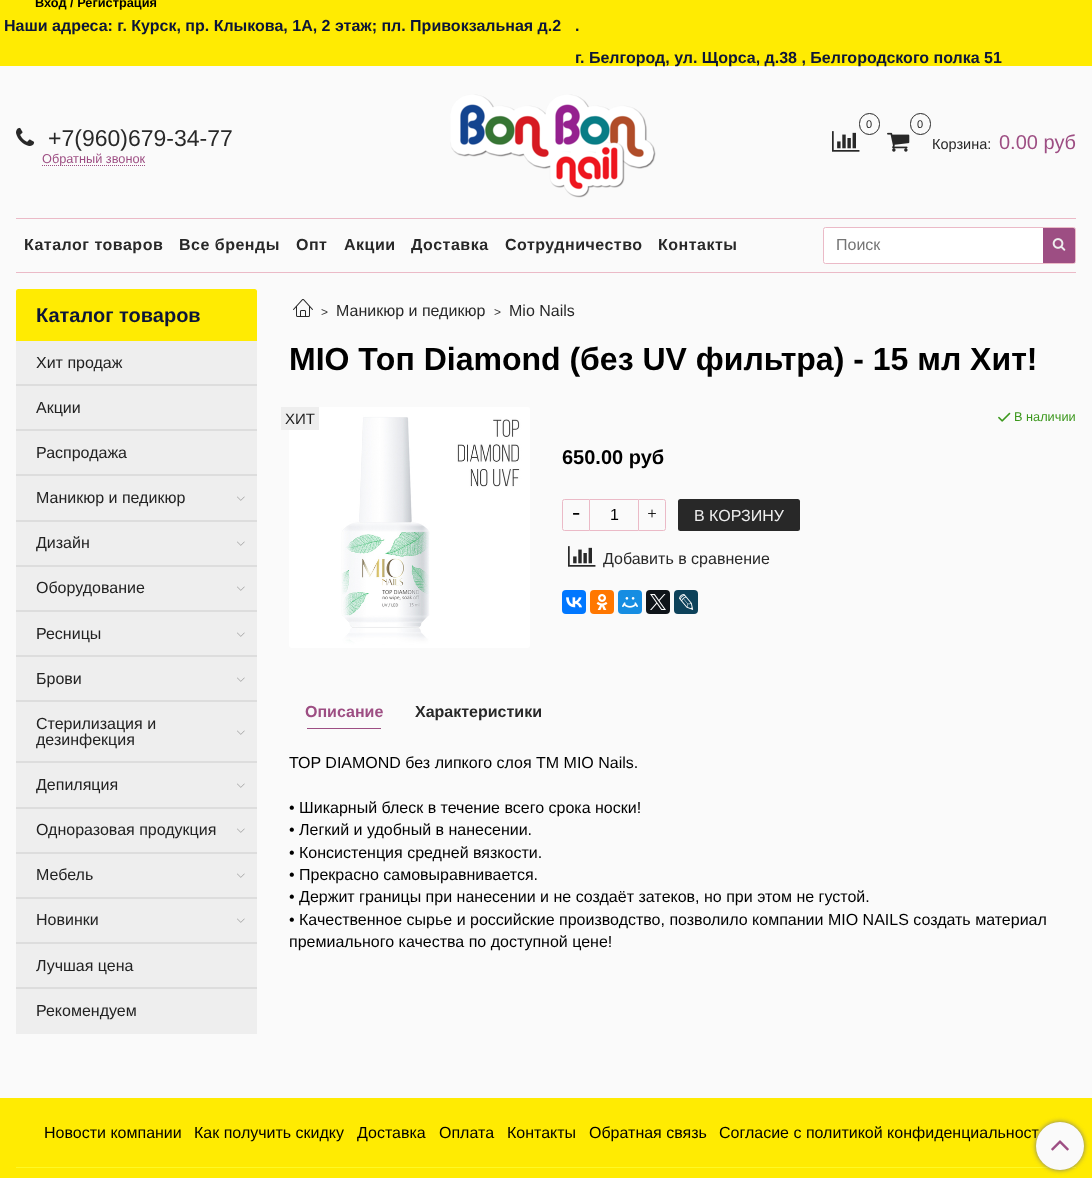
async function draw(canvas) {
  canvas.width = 1092;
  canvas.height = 1178;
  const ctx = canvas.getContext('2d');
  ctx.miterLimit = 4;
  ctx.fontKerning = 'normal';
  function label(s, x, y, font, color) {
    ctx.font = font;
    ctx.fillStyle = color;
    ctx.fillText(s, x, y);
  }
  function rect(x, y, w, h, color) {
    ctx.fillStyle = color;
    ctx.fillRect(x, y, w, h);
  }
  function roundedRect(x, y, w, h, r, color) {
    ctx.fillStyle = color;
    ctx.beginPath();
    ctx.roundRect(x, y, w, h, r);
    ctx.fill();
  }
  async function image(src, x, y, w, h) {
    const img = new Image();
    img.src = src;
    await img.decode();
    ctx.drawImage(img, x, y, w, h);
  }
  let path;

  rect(0, 0, 1092, 1178, '#fafafa');
  rect(0, 0, 1092, 66, '#ffeb02');
  label('Вход / Регистрация', 35, 7, 'bold 12.75px Liberation Sans', '#000');
  label('Наши адреса: г. Курск, пр. Клыкова, 1А, 2 этаж; пл. Привокзальная д.2', 4, 31, 'bold 16px Liberation Sans', '#0c1538');
  label('.', 575, 31, 'bold 16px Liberation Sans', '#0c1538');
  label('г. Белгород, ул. Щорса, д.38 , Белгородского полка 51', 575, 63, 'bold 16px Liberation Sans', '#0c1538');
  await image('assets/img1.png', 16, 127, 19, 19);
  label('+7(960)679-34-77', 48, 146, '23px Liberation Sans', '#282828');
  path = new Path2D('M42 165.5H145');
  ctx.strokeStyle = '#9d4e83';
  ctx.setLineDash([1, 1]);
  ctx.stroke(path);
  label('Обратный звонок', 42, 163, '12.75px Liberation Sans', '#9d4e83');
  await image('assets/img2.png', 450, 94, 206, 104);
  await image('assets/img3.png', 832, 131, 28, 21);
  ctx.beginPath();
  ctx.roundRect(859.5, 113.5, 20, 21, 10);
  ctx.strokeStyle = '#282828';
  ctx.setLineDash([]);
  ctx.stroke();
  label('0', 866, 128, '11px Liberation Sans', '#282828');
  ctx.beginPath();
  ctx.roundRect(910.5, 113.5, 20, 21, 10);
  ctx.stroke();
  label('0', 917, 128, '11px Liberation Sans', '#282828');
  await image('assets/img4.png', 887, 132, 23, 20);
  label('Корзина:', 932, 149, '14.5px Liberation Sans', '#282828');
  label('0.00 руб', 999, 149, '20px Liberation Sans', '#9d4e83');
  rect(16, 218, 1060, 1, '#ebbac7');
  rect(16, 272, 1060, 1, '#ebbac7');
  ctx.letterSpacing = '0.5px';
  label('Каталог товаров', 24, 250, 'bold 16px Liberation Sans', '#282828');
  label('Все бренды', 179, 250, 'bold 16px Liberation Sans', '#282828');
  label('Опт', 296, 250, 'bold 16px Liberation Sans', '#282828');
  label('Акции', 344, 250, 'bold 16px Liberation Sans', '#282828');
  label('Доставка', 411, 250, 'bold 16px Liberation Sans', '#282828');
  label('Сотрудничество', 505, 250, 'bold 16px Liberation Sans', '#282828');
  label('Контакты', 658, 250, 'bold 16px Liberation Sans', '#282828');
  ctx.fillStyle = '#fff';
  ctx.beginPath();
  ctx.roundRect(823.5, 227.5, 252, 36, 2);
  ctx.fill();
  ctx.strokeStyle = '#ebbac7';
  ctx.stroke();
  ctx.letterSpacing = '0px';
  label('Поиск', 836, 250, '16px Liberation Sans', '#757575');
  ctx.fillStyle = '#9d4e83';
  ctx.beginPath();
  ctx.roundRect(1043, 228, 32, 35, [0, 1.5, 1.5, 0]);
  ctx.fill();
  await image('assets/img5.png', 1052, 238, 14, 13);
  ctx.fillStyle = '#ffeb02';
  ctx.beginPath();
  ctx.roundRect(16, 289, 241, 52, [2.5, 2.5, 0, 0]);
  ctx.fill();
  label('Каталог товаров', 36, 322, 'bold 20px Liberation Sans', '#0c1538');
  rect(16, 341, 241, 693, '#eee');
  rect(16, 384, 241, 2, '#ddd');
  label('Хит продаж', 36, 368, '16px Liberation Sans', '#222');
  rect(16, 429, 241, 2, '#ddd');
  label('Акции', 36, 413, '16px Liberation Sans', '#222');
  rect(16, 474, 241, 2, '#ddd');
  label('Распродажа', 36, 458, '16px Liberation Sans', '#222');
  rect(16, 520, 241, 2, '#ddd');
  label('Маникюр и педикюр', 36, 503, '16px Liberation Sans', '#222');
  await image('assets/img6.png', 237, 496, 8, 5);
  rect(16, 565, 241, 2, '#ddd');
  label('Дизайн', 36, 548, '16px Liberation Sans', '#222');
  await image('assets/img6.png', 237, 541, 8, 5);
  rect(16, 610, 241, 2, '#ddd');
  label('Оборудование', 36, 593, '16px Liberation Sans', '#222');
  await image('assets/img6.png', 237, 586, 8, 5);
  rect(16, 655, 241, 2, '#ddd');
  label('Ресницы', 36, 639, '16px Liberation Sans', '#222');
  await image('assets/img6.png', 237, 632, 8, 5);
  rect(16, 700, 241, 2, '#ddd');
  label('Брови', 36, 684, '16px Liberation Sans', '#222');
  await image('assets/img6.png', 237, 677, 8, 5);
  rect(16, 761, 241, 2, '#ddd');
  label('Стерилизация и', 36, 729, '16px Liberation Sans', '#222');
  label('дезинфекция', 36, 745, '16px Liberation Sans', '#222');
  await image('assets/img6.png', 237, 730, 8, 5);
  rect(16, 807, 241, 2, '#ddd');
  label('Депиляция', 36, 790, '16px Liberation Sans', '#222');
  await image('assets/img6.png', 237, 783, 8, 5);
  rect(16, 852, 241, 2, '#ddd');
  label('Одноразовая продукция', 36, 835, '16px Liberation Sans', '#222');
  await image('assets/img6.png', 237, 828, 8, 5);
  rect(16, 897, 241, 2, '#ddd');
  label('Мебель', 36, 880, '16px Liberation Sans', '#222');
  await image('assets/img6.png', 237, 873, 8, 5);
  rect(16, 942, 241, 2, '#ddd');
  label('Новинки', 36, 925, '16px Liberation Sans', '#222');
  await image('assets/img6.png', 237, 918, 8, 5);
  rect(16, 987, 241, 2, '#ddd');
  label('Лучшая цена', 36, 971, '16px Liberation Sans', '#222');
  label('Рекомендуем', 36, 1016, '16px Liberation Sans', '#222');
  await image('assets/img7.png', 293, 299, 20, 18);
  label('>', 321, 316, '12px Liberation Sans', '#323232');
  label('Маникюр и педикюр', 336, 316, '16px Liberation Sans', '#282828');
  label('>', 494, 316, '12px Liberation Sans', '#323232');
  label('Mio Nails', 509, 316, '16px Liberation Sans', '#282828');
  label('MIO Топ Diamond (без UV фильтра) - 15 мл Хит!', 289, 370, 'bold 32px Liberation Sans', '#000');
  await image('assets/img8.png', 289, 407, 241, 241);
  rect(281, 407, 38, 23, '#eee');
  label('ХИТ', 285, 424, '15px Liberation Sans', '#222');
  await image('assets/img9.png', 998, 412, 13, 10);
  label('В наличии', 1014, 421, '12.75px Liberation Sans', '#3c981d');
  label('650.00 руб', 562, 464, 'bold 20px Liberation Sans', '#000');
  ctx.beginPath();
  ctx.roundRect(562.5, 499.5, 27, 31, [2, 0, 0, 2]);
  ctx.stroke();
  await image('assets/img10.png', 573, 513, 7, 2);
  rect(590, 499, 48, 1, '#ebbac7');
  rect(590, 530, 48, 1, '#ebbac7');
  label('1', 610, 520, '16px Liberation Sans', '#000');
  ctx.beginPath();
  ctx.roundRect(638.5, 499.5, 27, 31, [0, 2, 2, 0]);
  ctx.stroke();
  await image('assets/img11.png', 648, 509, 8, 9);
  roundedRect(678, 499, 122, 32, 2.5, '#282828');
  label('В КОРЗИНУ', 694, 521, '16px Liberation Sans', '#eee');
  await image('assets/img3.png', 568, 546, 28, 21);
  label('Добавить в сравнение', 603, 564, '16px Liberation Sans', '#282828');
  roundedRect(562, 590, 24, 24, 4, '#07f');
  await image('assets/img12.png', 566, 597, 16, 11);
  roundedRect(590, 590, 24, 24, 4, '#f70');
  await image('assets/img13.png', 596, 594, 12, 16);
  roundedRect(618, 590, 24, 24, 4, '#168de2');
  await image('assets/img14.png', 622, 597, 16, 11);
  roundedRect(646, 590, 24, 24, 4, '#0f1419');
  await image('assets/img15.png', 650, 594, 16, 16);
  roundedRect(674, 590, 24, 24, 4, '#0d425a');
  await image('assets/img16.png', 679, 594, 15, 16);
  label('Описание', 305, 717, 'bold 16px Liberation Sans', '#9d4e83');
  rect(307, 728, 74, 1, '#9d4e83');
  label('Характеристики', 415, 717, 'bold 16px Liberation Sans', '#282828');
  label('ТОP DIAMOND без липкого слоя ТМ MIO Nails.', 289, 768, '16px Liberation Sans', '#000');
  label('• Шикарный блеск в течение всего срока носки!', 289, 813, '16px Liberation Sans', '#000');
  label('• Легкий и удобный в нанесении.', 289, 835, '16px Liberation Sans', '#000');
  label('• Консистенция средней вязкости.', 289, 858, '16px Liberation Sans', '#000');
  label('• Прекрасно самовыравнивается.', 289, 880, '16px Liberation Sans', '#000');
  label('• Держит границы при нанесении и не создаёт затeков, но при этом не густой.', 289, 902, '16px Liberation Sans', '#000');
  label('• Качественное сырье и российские производство, позволило компании MIO NAILS создать материал', 289, 925, '16px Liberation Sans', '#000');
  label('премиального качества по доступной цене!', 289, 947, '16px Liberation Sans', '#000');
  rect(0, 1098, 1092, 80, '#ffeb02');
  rect(16, 1167, 1060, 1, '#fff826');
  label('Новости компании', 44, 1138, '16px Liberation Sans', '#000');
  label('Как получить скидку', 194, 1138, '16px Liberation Sans', '#000');
  label('Доставка', 357, 1138, '16px Liberation Sans', '#000');
  label('Оплата', 439, 1138, '16px Liberation Sans', '#000');
  label('Контакты', 507, 1138, '16px Liberation Sans', '#000');
  label('Обратная связь', 589, 1138, '16px Liberation Sans', '#000');
  label('Согласие с политикой конфиденциальност', 719, 1138, '16px Liberation Sans', '#000');
  ctx.fillStyle = '#777';
  ctx.filter = 'blur(2.5px)';
  ctx.beginPath();
  ctx.roundRect(1036, 1122, 48, 48, 24);
  ctx.fill();
  ctx.filter = 'none';
  ctx.fillStyle = '#fafafa';
  ctx.beginPath();
  ctx.arc(1060, 1146, 24, 0, 2 * Math.PI);
  ctx.fill();
  await image('assets/img17.png', 1051, 1140, 18, 11);
}

draw(document.querySelector('canvas'));
